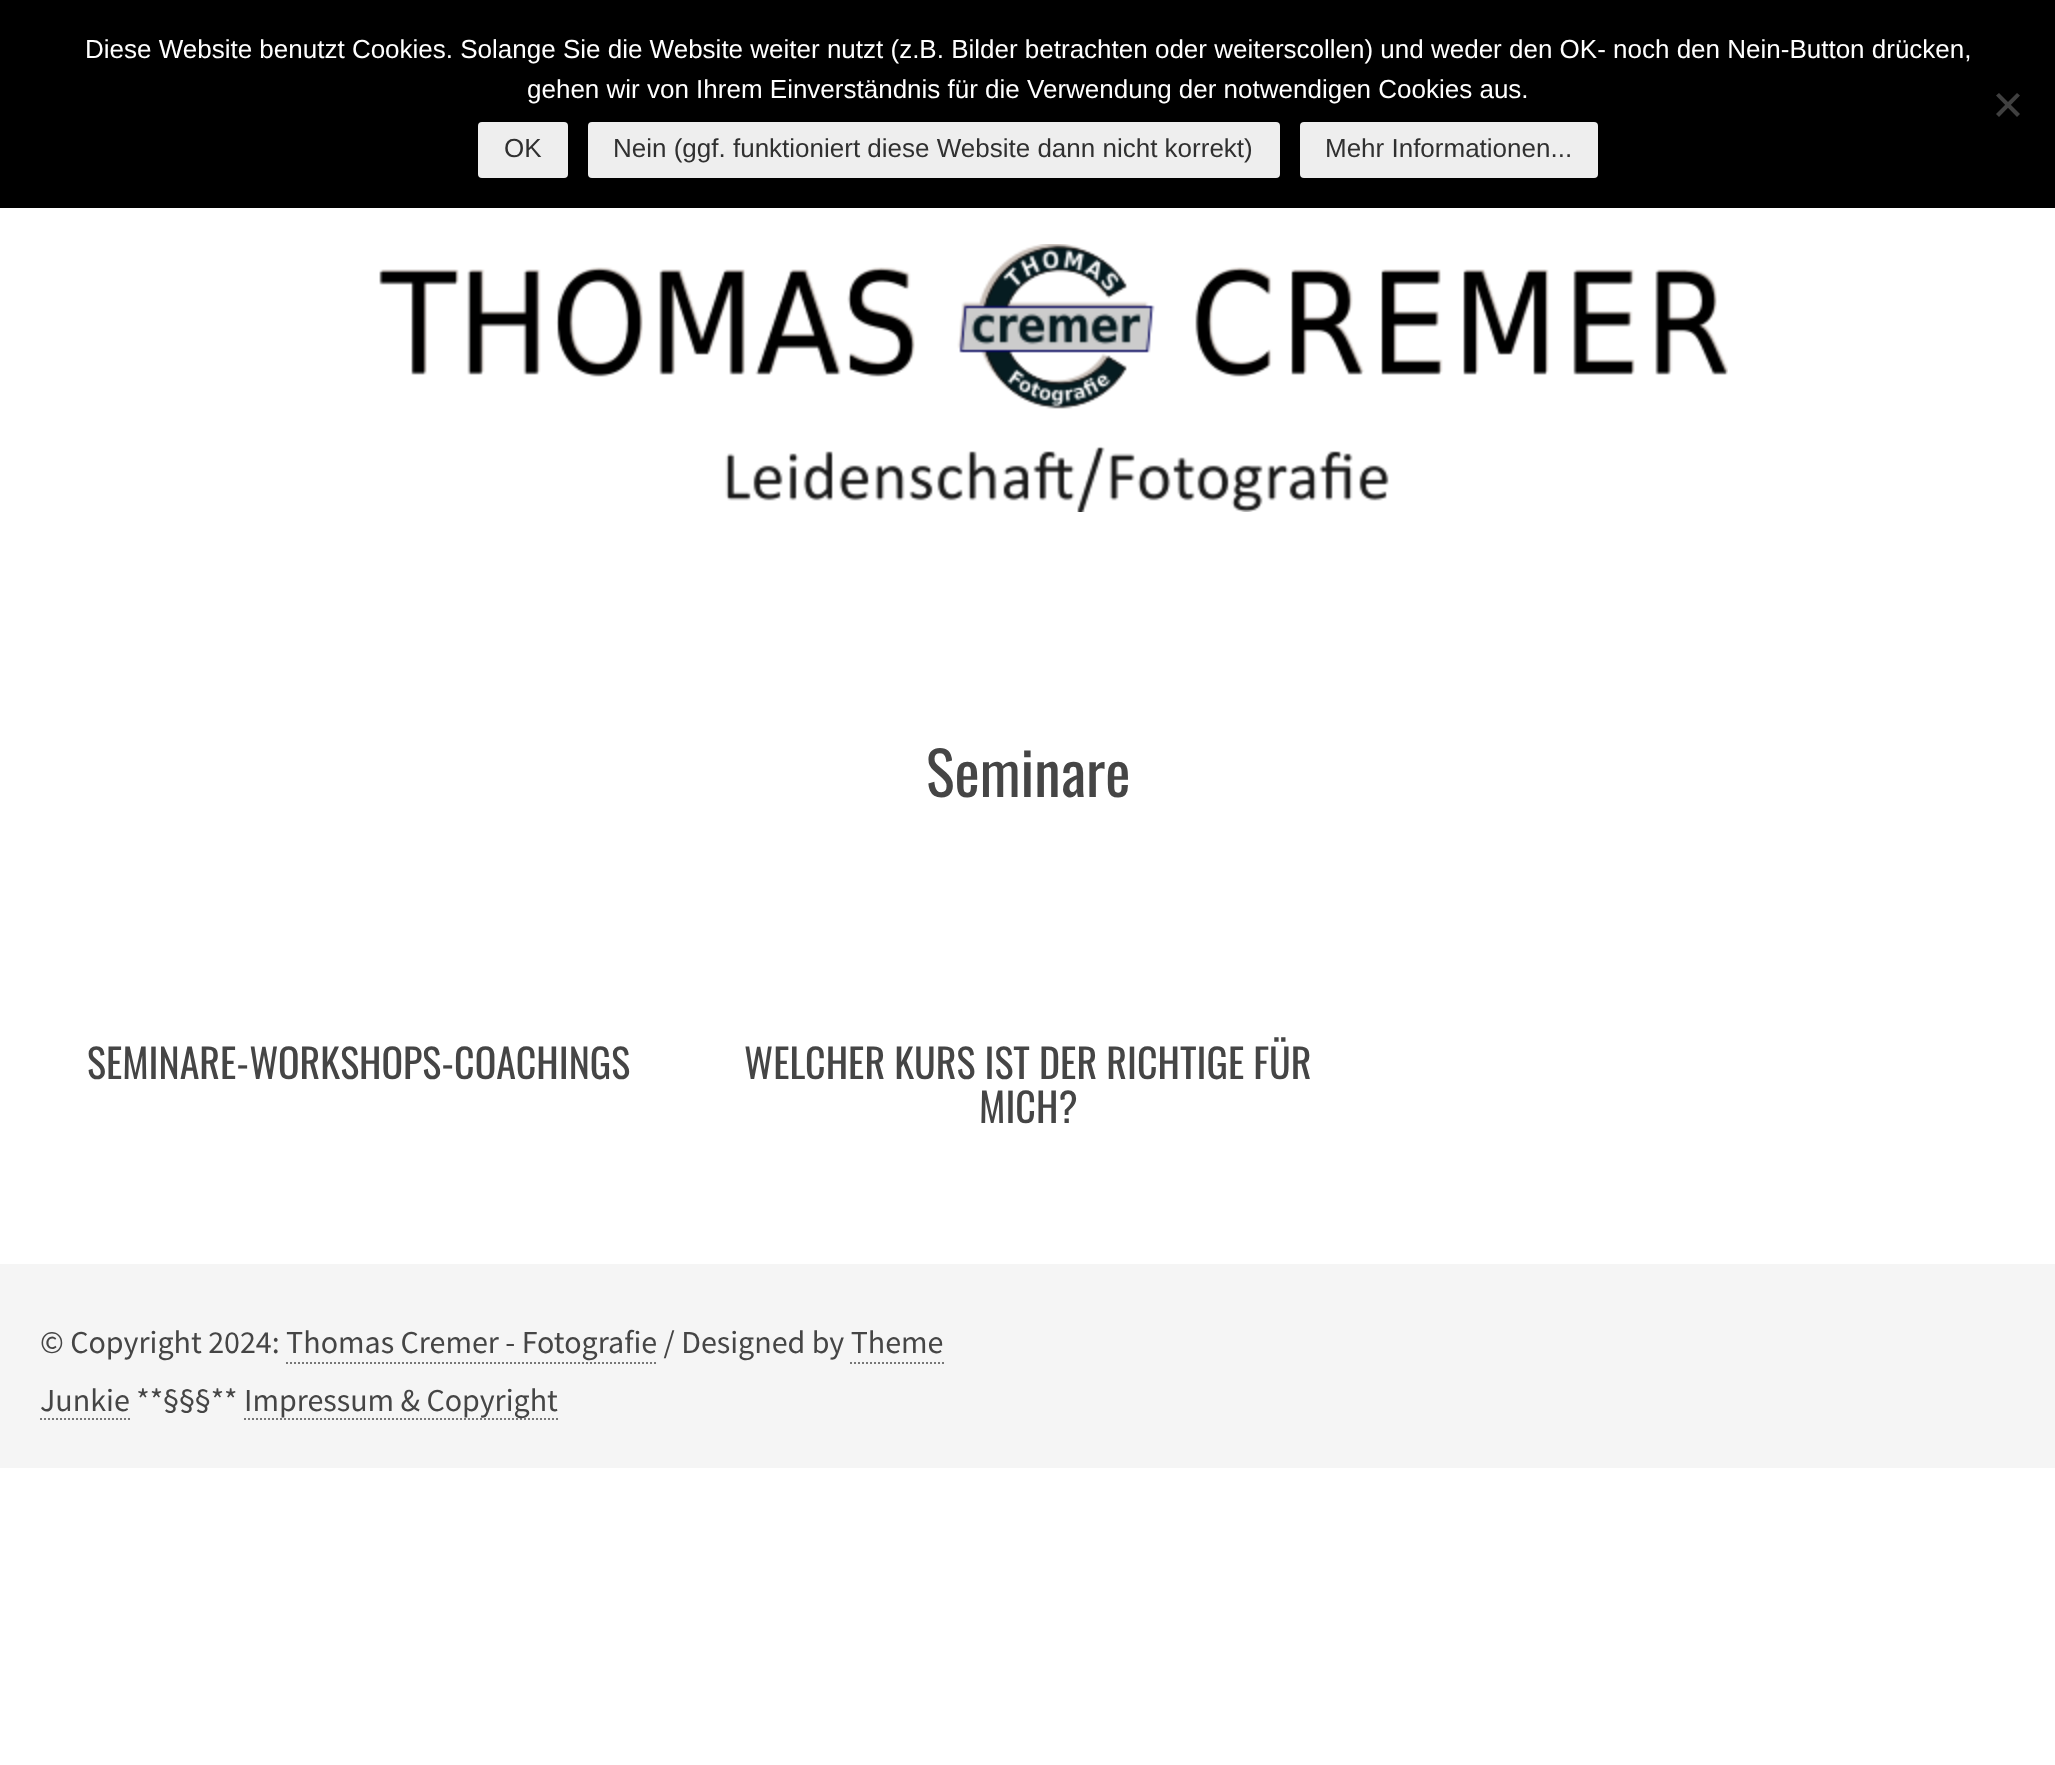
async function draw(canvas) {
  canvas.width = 2055;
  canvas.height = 1765;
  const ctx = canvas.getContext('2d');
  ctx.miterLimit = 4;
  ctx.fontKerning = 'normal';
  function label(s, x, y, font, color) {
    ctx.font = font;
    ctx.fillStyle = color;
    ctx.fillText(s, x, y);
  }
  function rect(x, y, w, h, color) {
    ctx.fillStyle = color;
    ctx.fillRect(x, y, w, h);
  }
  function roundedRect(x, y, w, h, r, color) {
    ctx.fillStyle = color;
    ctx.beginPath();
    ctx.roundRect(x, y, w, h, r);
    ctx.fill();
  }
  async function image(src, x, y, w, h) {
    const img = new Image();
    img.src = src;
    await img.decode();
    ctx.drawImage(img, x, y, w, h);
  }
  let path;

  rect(0, 0, 2055, 1765, '#fff');
  rect(0, 0, 2055, 208, '#000');
  label('Diese Website benutzt Cookies. Solange Sie die Website weiter nutzt (z.B. Bilder betrachten oder weiterscollen) und weder den OK- noch den Nein-Button drücken,', 85, 58, '26px Liberation Sans', '#fff');
  label('gehen wir von Ihrem Einverständnis für die Verwendung der notwendigen Cookies aus.', 527, 98, '26px Liberation Sans', '#fff');
  ctx.fillStyle = '#404040';
  path = new Path2D('M2017 93L2020 95.5L1999 117L1996 114Z');
  ctx.fill(path);
  path = new Path2D('M1996 95.5L1999 93L2020 114L2017 117Z');
  ctx.fill(path);
  roundedRect(478, 122, 90, 56, 4, '#eee');
  label('OK', 504, 157, '26px Liberation Sans', '#303030');
  roundedRect(588, 122, 692, 56, 4, '#eee');
  label('Nein (ggf. funktioniert diese Website dann nicht korrekt)', 613, 157, '26px Liberation Sans', '#303030');
  roundedRect(1300, 122, 298, 56, 4, '#eee');
  label('Mehr Informationen...', 1325, 157, '26px Liberation Sans', '#303030');
  await image('assets/img1.png', 379, 244, 1349, 268);
  label('Seminare', 926, 797, '60px Oswald', '#454545');
  label('SEMINARE-WORKSHOPS-COACHINGS', 87, 1079, '40px Oswald', '#454545');
  label('WELCHER KURS IST DER RICHTIGE FÜR', 744, 1079, '40px Oswald', '#454545');
  label('MICH?', 979, 1123, '40px Oswald', '#454545');
  rect(0, 1264, 2055, 204, '#f5f5f5');
  label('© Copyright 2024: Thomas Cremer - Fotografie / Designed by Theme', 40, 1353, '32px Source Sans Pro', '#454545');
  path = new Path2D('M286 1363H658');
  ctx.strokeStyle = '#777';
  ctx.lineWidth = 2;
  ctx.setLineDash([2, 2]);
  ctx.stroke(path);
  label('Junkie **§§§**', 40, 1411, '32px Source Sans Pro', '#454545');
  path = new Path2D('M850 1363H944');
  ctx.stroke(path);
  path = new Path2D('M40 1419H130');
  ctx.stroke(path);
  path = new Path2D('M244 1419H558');
  ctx.stroke(path);
  label('Impressum & Copyright', 244, 1411, '32px Source Sans Pro', '#454545');
}

draw(document.querySelector('canvas'));
